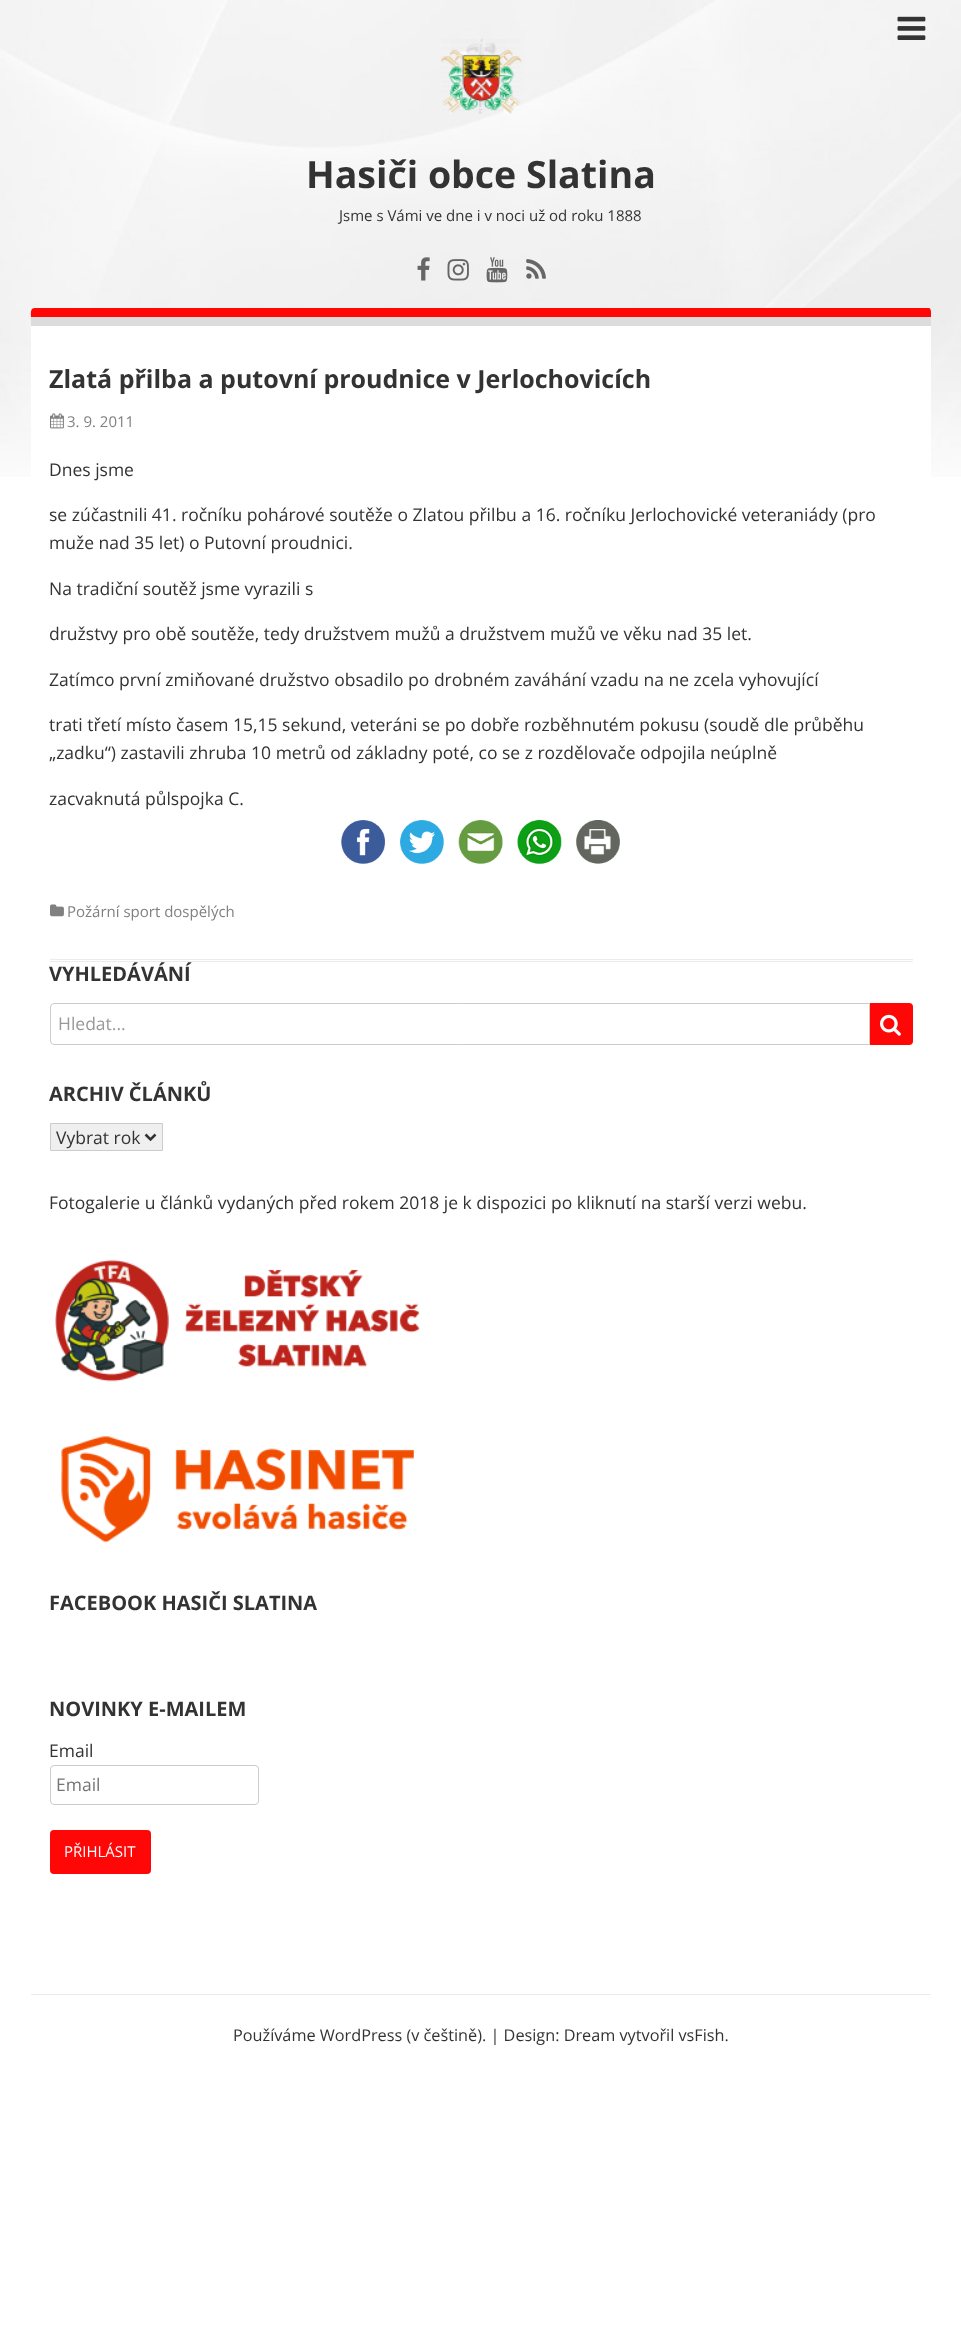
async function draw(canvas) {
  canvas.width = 961;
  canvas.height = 2351;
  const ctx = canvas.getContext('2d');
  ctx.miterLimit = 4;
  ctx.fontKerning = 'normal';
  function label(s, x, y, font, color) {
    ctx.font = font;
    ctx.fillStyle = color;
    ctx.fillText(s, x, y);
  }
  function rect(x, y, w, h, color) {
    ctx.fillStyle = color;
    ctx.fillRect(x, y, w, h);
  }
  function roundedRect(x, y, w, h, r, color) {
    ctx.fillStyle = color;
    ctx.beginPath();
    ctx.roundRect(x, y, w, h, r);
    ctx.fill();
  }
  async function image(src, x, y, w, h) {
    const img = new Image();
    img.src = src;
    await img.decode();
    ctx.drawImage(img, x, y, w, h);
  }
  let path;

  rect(0, 0, 961, 2351, '#fff');
  await image('assets/img1.png', 0, 0, 961, 477);
  await image('assets/img2.png', 897, 16, 29, 24);
  await image('assets/img3.png', 441, 38, 81, 76);
  label('Hasiči obce Slatina', 306, 188, 'bold 37.5px Open Sans', '#333');
  label('Jsme s Vámi ve dne i v noci už od roku 1888', 339, 221, '15px Open Sans', '#333');
  await image('assets/img4.png', 417, 257, 13, 24);
  await image('assets/img5.png', 447, 259, 22, 22);
  await image('assets/img6.png', 486, 257, 22, 26);
  await image('assets/img7.png', 526, 259, 20, 20);
  ctx.fillStyle = '#ff0707';
  path = new Path2D('M35 308H929C930 308 931 310 931 312V317H31C31 313 30 308 35 308Z');
  ctx.fill(path);
  ctx.fillStyle = '#dcdcdc';
  path = new Path2D('M931 322V326H31V317H931Z');
  ctx.fill(path);
  rect(31, 326, 900, 151, '#fff');
  rect(50, 959, 863, 1, '#ebeded');
  rect(50, 961, 863, 1, '#ebeded');
  label('Zlatá přilba a putovní proudnice v Jerlochovicích', 49, 388, 'bold 25px Open Sans', '#333');
  await image('assets/img8.png', 50, 413, 14, 16);
  label('3. 9. 2011', 67, 427, '15px Open Sans', '#808080');
  label('Dnes jsme', 49, 476, '17.5px Open Sans', '#333');
  label('se zúčastnili 41. ročníku pohárové soutěže o Zlatou přilbu a 16. ročníku Jerlochovické veteraniády (pro', 49, 521, '17.5px Open Sans', '#333');
  label('muže nad 35 let) o Putovní proudnici.', 49, 549, '17.5px Open Sans', '#333');
  label('Na tradiční soutěž jsme vyrazili s', 49, 595, '17.5px Open Sans', '#333');
  label('družstvy pro obě soutěže, tedy družstvem mužů a družstvem mužů ve věku nad 35 let.', 49, 640, '17.5px Open Sans', '#333');
  label('Zatímco první zmiňované družstvo obsadilo po drobném zaváhání vzadu na ne zcela vyhovující', 49, 686, '17.5px Open Sans', '#333');
  label('trati třetí místo časem 15,15 sekund, veteráni se po dobře rozběhnutém pokusu (soudě dle průběhu', 49, 731, '17.5px Open Sans', '#333');
  label('„zadku“) zastavili zhruba 10 metrů od základny poté, co se z rozdělovače odpojila neúplně', 49, 759, '17.5px Open Sans', '#333');
  label('zacvaknutá půlspojka C.', 49, 805, '17.5px Open Sans', '#333');
  await image('assets/img9.png', 341, 820, 44, 44);
  await image('assets/img10.png', 400, 820, 44, 44);
  await image('assets/img11.png', 458, 820, 45, 44);
  await image('assets/img12.png', 517, 820, 45, 44);
  await image('assets/img13.png', 576, 820, 44, 44);
  await image('assets/img14.png', 50, 904, 14, 13);
  label('Požární sport dospělých', 67, 917, '15px Open Sans', '#808080');
  label('VYHLEDÁVÁNÍ', 49, 981, 'bold 20px Open Sans', '#333');
  ctx.beginPath();
  ctx.roundRect(50.5, 1003.5, 819, 41, [3.5, 0, 0, 3.5]);
  ctx.strokeStyle = '#ccc';
  ctx.stroke();
  label('Hledat...', 58, 1030, '17.5px Open Sans', '#999');
  ctx.fillStyle = '#ff0707';
  ctx.beginPath();
  ctx.roundRect(870, 1003, 43, 42, [0, 4, 4, 0]);
  ctx.fill();
  await image('assets/img15.png', 880, 1014, 21, 22);
  label('ARCHIV ČLÁNKŮ', 49, 1101, 'bold 20px Open Sans', '#333');
  ctx.fillStyle = '#efefef';
  ctx.beginPath();
  ctx.rect(50.5, 1123.5, 112, 27);
  ctx.fill();
  ctx.stroke();
  path = new Path2D('M145.5 1134.5L150.5 1139.5L155.5 1134.5');
  ctx.strokeStyle = '#333';
  ctx.lineWidth = 2.5;
  ctx.stroke(path);
  label('Vybrat rok', 56, 1144, '17.5px Open Sans', '#333');
  label('Fotogalerie u článků vydaných před rokem 2018 je k dispozici po kliknutí na starší verzi webu.', 49, 1209, '17.5px Open Sans', '#333');
  await image('assets/img16.png', 55, 1259, 365, 123);
  await image('assets/img17.png', 61, 1436, 353, 107);
  label('FACEBOOK HASIČI SLATINA', 49, 1610, 'bold 20px Open Sans', '#333');
  label('NOVINKY E-MAILEM', 49, 1716, 'bold 20px Open Sans', '#333');
  label('Email', 49, 1757, '17.5px Open Sans', '#333');
  ctx.beginPath();
  ctx.roundRect(50.5, 1765.5, 208, 39, 3.5);
  ctx.strokeStyle = '#ccc';
  ctx.lineWidth = 1;
  ctx.stroke();
  label('Email', 56, 1791, '17.5px Open Sans', '#757575');
  roundedRect(50, 1830, 101, 44, 4, '#ff0707');
  label('PŘIHLÁSIT', 64, 1857, '15px Open Sans', '#fff');
  rect(31, 1994, 900, 1, '#ebeded');
  label('Používáme WordPress (v češtině). | Design: Dream vytvořil vsFish.', 233, 2041, '16.25px Open Sans', '#333');
}

draw(document.querySelector('canvas'));
